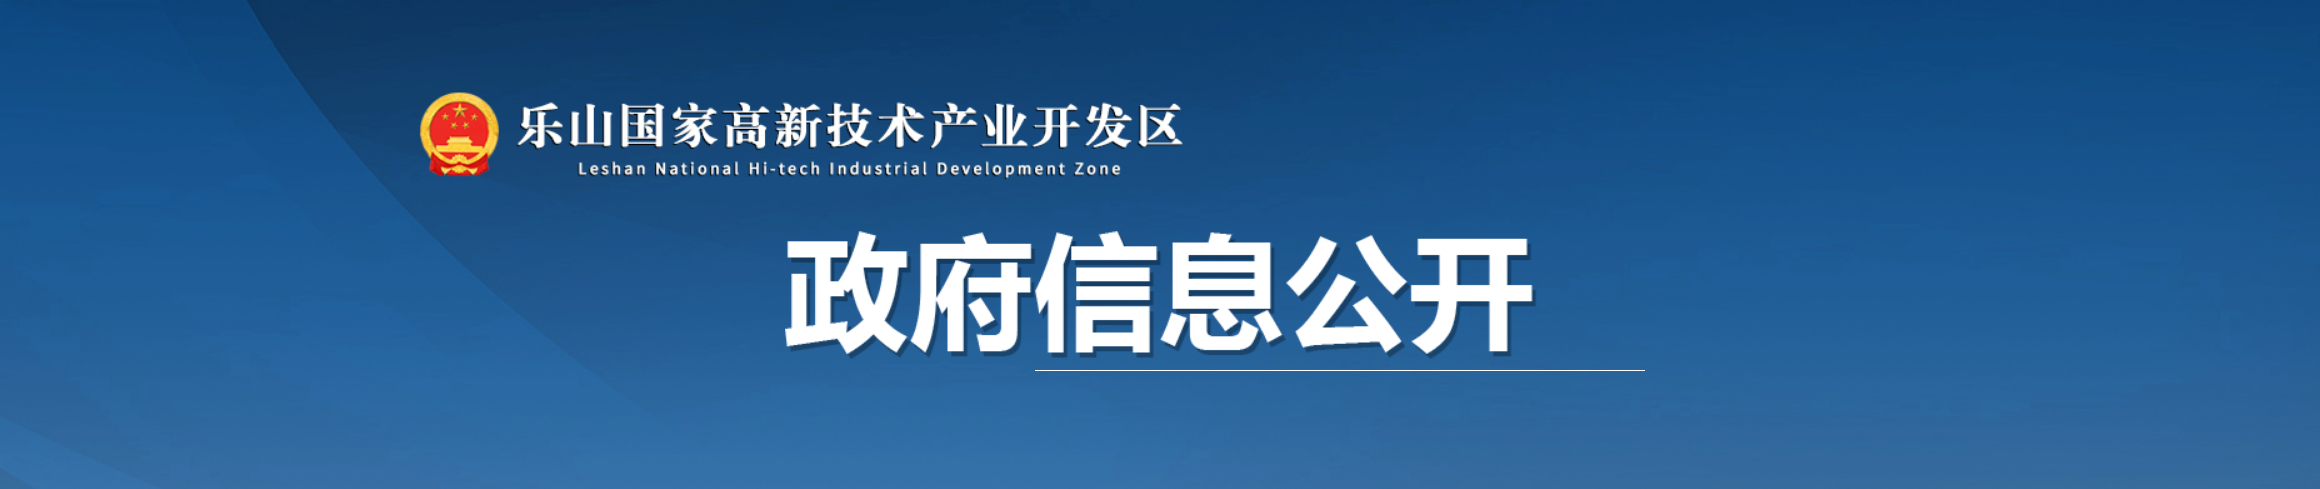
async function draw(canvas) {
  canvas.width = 2320;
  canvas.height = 489;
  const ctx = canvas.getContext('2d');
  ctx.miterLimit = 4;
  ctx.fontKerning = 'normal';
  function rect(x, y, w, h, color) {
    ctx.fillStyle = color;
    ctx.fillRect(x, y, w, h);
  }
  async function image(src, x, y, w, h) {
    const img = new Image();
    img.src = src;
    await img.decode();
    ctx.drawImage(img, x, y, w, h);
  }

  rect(0, 0, 2320, 489, '#fff');
  await image('assets/img1.png', 0, 0, 2320, 489);
  await image('assets/img2.png', 419, 92, 764, 88);
  await image('assets/img3.png', 785, 231, 752, 128);
  rect(1035, 370, 610, 1, '#fff');
}

draw(document.querySelector('canvas'));
